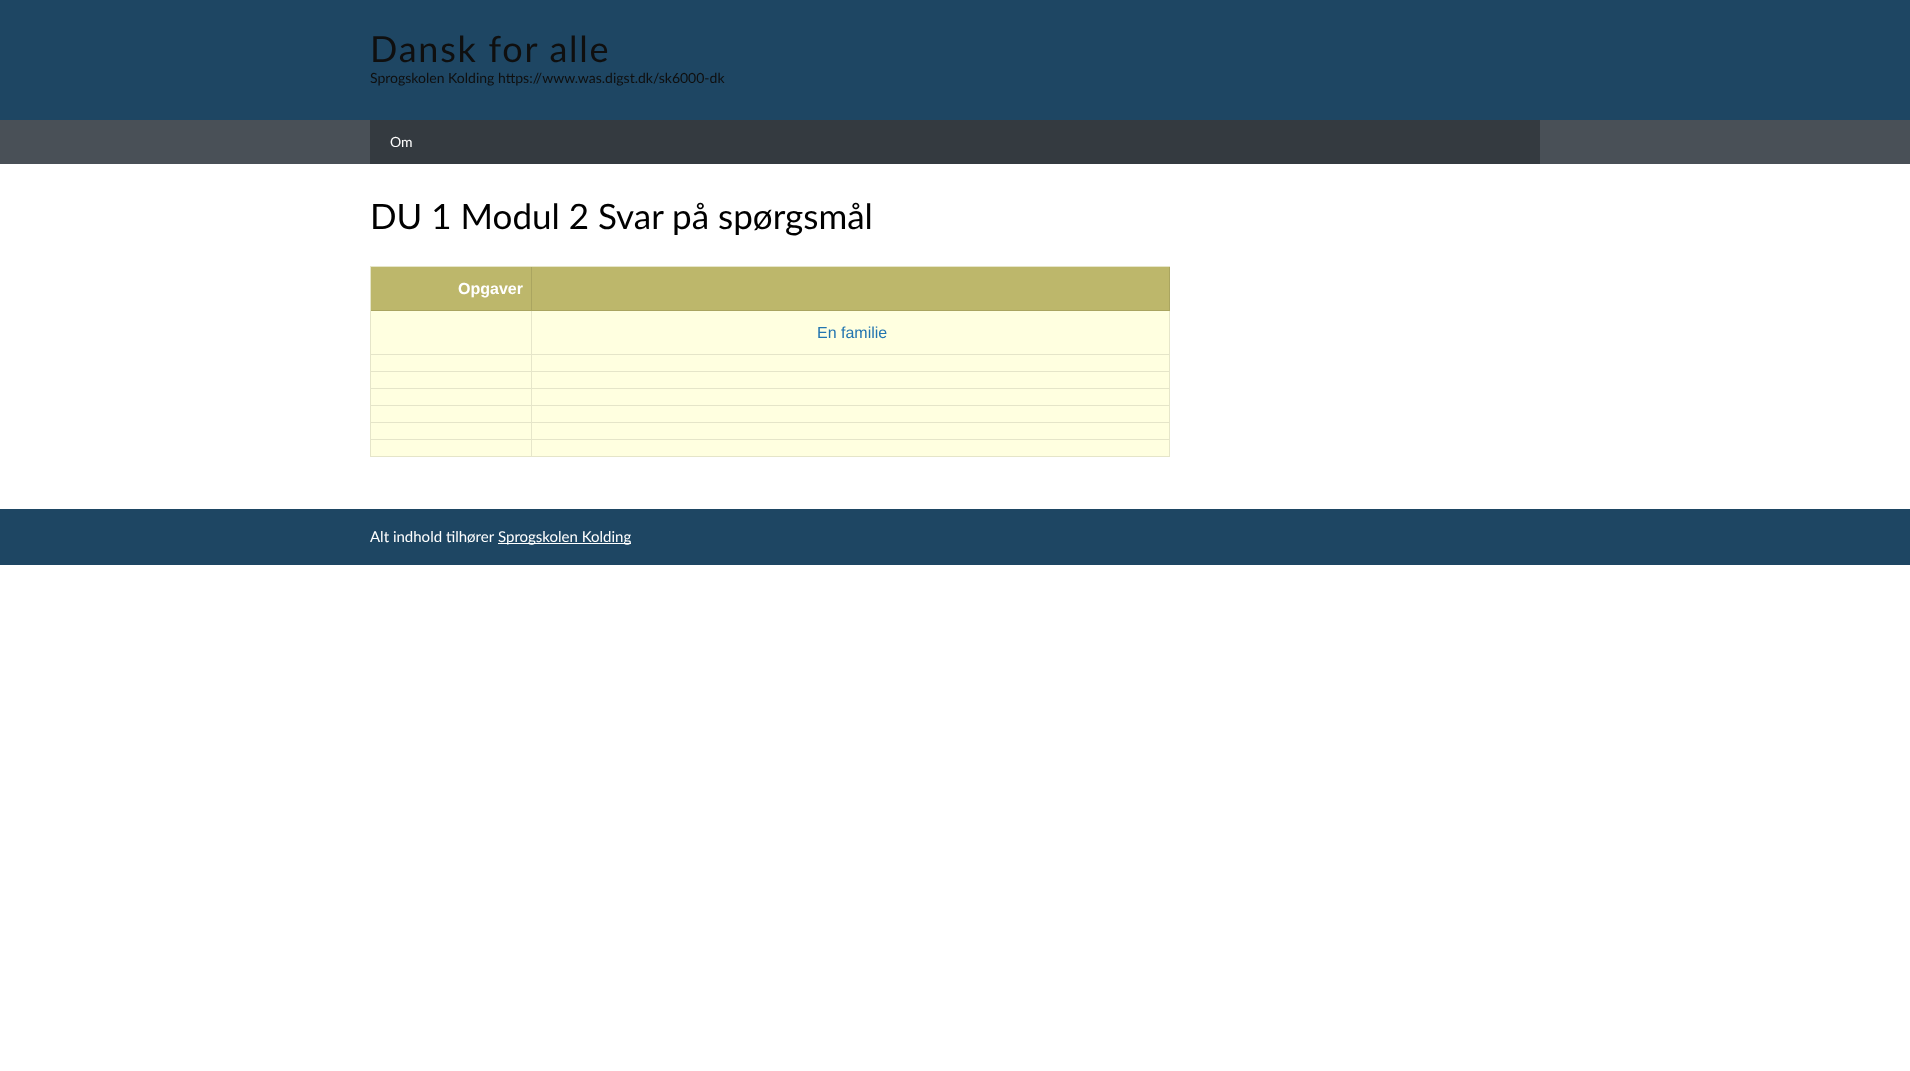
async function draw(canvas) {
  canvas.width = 1910;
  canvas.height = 1071;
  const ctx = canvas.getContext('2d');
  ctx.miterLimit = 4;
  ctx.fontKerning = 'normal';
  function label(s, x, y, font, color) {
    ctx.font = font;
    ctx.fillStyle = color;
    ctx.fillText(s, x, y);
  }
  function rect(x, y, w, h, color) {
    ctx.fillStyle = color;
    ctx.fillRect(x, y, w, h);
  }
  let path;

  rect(0, 0, 1910, 1071, '#fff');
  rect(0, 0, 1910, 120, '#1e4663');
  ctx.letterSpacing = '1.75px';
  label('Dansk for alle', 370, 62, '36px Lato', '#0f0f0f');
  ctx.letterSpacing = '0px';
  label('Sprogskolen Kolding https://www.was.digst.dk/sk6000-dk', 370, 83, '14px Lato', '#0f0f0f');
  rect(0, 120, 1910, 44, '#495057');
  rect(370, 120, 1170, 44, '#343a40');
  label('Om', 390, 147, '14px Lato', '#fff');
  label('DU 1 Modul 2 Svar på spørgsmål', 370, 229, '35px Lato', '#000');
  rect(370, 266, 800, 191, '#ffffe0');
  ctx.fillStyle = '#e6e6ca';
  path = new Path2D('M370 266H1170V267H371Z');
  ctx.fill(path);
  ctx.fillStyle = '#0000001a';
  path = new Path2D('M370 457V266L371 267V457Z');
  ctx.fill(path);
  rect(371, 267, 799, 44, '#bdb76b');
  ctx.fillStyle = '#aaa560';
  path = new Path2D('M532 267V311L531 310V267Z');
  ctx.fill(path);
  ctx.fillStyle = '#0000001a';
  path = new Path2D('M532 311H371V310H531Z');
  ctx.fill(path);
  label('Opgaver', 458, 294, 'bold 16px Liberation Sans', '#fff');
  ctx.fillStyle = '#aaa560';
  path = new Path2D('M1170 267V311L1169 310V267Z');
  ctx.fill(path);
  ctx.fillStyle = '#0000001a';
  path = new Path2D('M1170 311H532V310H1169Z');
  ctx.fill(path);
  ctx.fillStyle = '#e6e6ca';
  path = new Path2D('M532 311V355L531 354V311Z');
  ctx.fill(path);
  ctx.fillStyle = '#0000001a';
  path = new Path2D('M532 355H371V354H531Z');
  ctx.fill(path);
  ctx.fillStyle = '#e6e6ca';
  path = new Path2D('M1170 311V355L1169 354V311Z');
  ctx.fill(path);
  ctx.fillStyle = '#0000001a';
  path = new Path2D('M1170 355H532V354H1169Z');
  ctx.fill(path);
  label('En familie', 817, 338, '16px Liberation Sans', '#2375b0');
  ctx.fillStyle = '#e6e6ca';
  path = new Path2D('M532 355V372L531 371V355Z');
  ctx.fill(path);
  ctx.fillStyle = '#0000001a';
  path = new Path2D('M532 372H371V371H531Z');
  ctx.fill(path);
  ctx.fillStyle = '#e6e6ca';
  path = new Path2D('M1170 355V372L1169 371V355Z');
  ctx.fill(path);
  ctx.fillStyle = '#0000001a';
  path = new Path2D('M1170 372H532V371H1169Z');
  ctx.fill(path);
  ctx.fillStyle = '#e6e6ca';
  path = new Path2D('M532 372V389L531 388V372Z');
  ctx.fill(path);
  ctx.fillStyle = '#0000001a';
  path = new Path2D('M532 389H371V388H531Z');
  ctx.fill(path);
  ctx.fillStyle = '#e6e6ca';
  path = new Path2D('M1170 372V389L1169 388V372Z');
  ctx.fill(path);
  ctx.fillStyle = '#0000001a';
  path = new Path2D('M1170 389H532V388H1169Z');
  ctx.fill(path);
  ctx.fillStyle = '#e6e6ca';
  path = new Path2D('M532 389V406L531 405V389Z');
  ctx.fill(path);
  ctx.fillStyle = '#0000001a';
  path = new Path2D('M532 406H371V405H531Z');
  ctx.fill(path);
  ctx.fillStyle = '#e6e6ca';
  path = new Path2D('M1170 389V406L1169 405V389Z');
  ctx.fill(path);
  ctx.fillStyle = '#0000001a';
  path = new Path2D('M1170 406H532V405H1169Z');
  ctx.fill(path);
  ctx.fillStyle = '#e6e6ca';
  path = new Path2D('M532 406V423L531 422V406Z');
  ctx.fill(path);
  ctx.fillStyle = '#0000001a';
  path = new Path2D('M532 423H371V422H531Z');
  ctx.fill(path);
  ctx.fillStyle = '#e6e6ca';
  path = new Path2D('M1170 406V423L1169 422V406Z');
  ctx.fill(path);
  ctx.fillStyle = '#0000001a';
  path = new Path2D('M1170 423H532V422H1169Z');
  ctx.fill(path);
  ctx.fillStyle = '#e6e6ca';
  path = new Path2D('M532 423V440L531 439V423Z');
  ctx.fill(path);
  ctx.fillStyle = '#0000001a';
  path = new Path2D('M532 440H371V439H531Z');
  ctx.fill(path);
  ctx.fillStyle = '#e6e6ca';
  path = new Path2D('M1170 423V440L1169 439V423Z');
  ctx.fill(path);
  ctx.fillStyle = '#0000001a';
  path = new Path2D('M1170 440H532V439H1169Z');
  ctx.fill(path);
  ctx.fillStyle = '#e6e6ca';
  path = new Path2D('M532 440V457L531 456V440Z');
  ctx.fill(path);
  ctx.fillStyle = '#0000001a';
  path = new Path2D('M532 457H371V456H531Z');
  ctx.fill(path);
  ctx.fillStyle = '#e6e6ca';
  path = new Path2D('M1170 440V457L1169 456V440Z');
  ctx.fill(path);
  ctx.fillStyle = '#0000001a';
  path = new Path2D('M1170 457H532V456H1169Z');
  ctx.fill(path);
  rect(0, 509, 1910, 56, '#1e4663');
  label('Alt indhold tilhører', 370, 542, '15px Lato', '#fff');
  rect(498, 543, 133, 1, '#fff');
  label('Sprogskolen Kolding', 498, 542, '15px Lato', '#fff');
}

draw(document.querySelector('canvas'));
